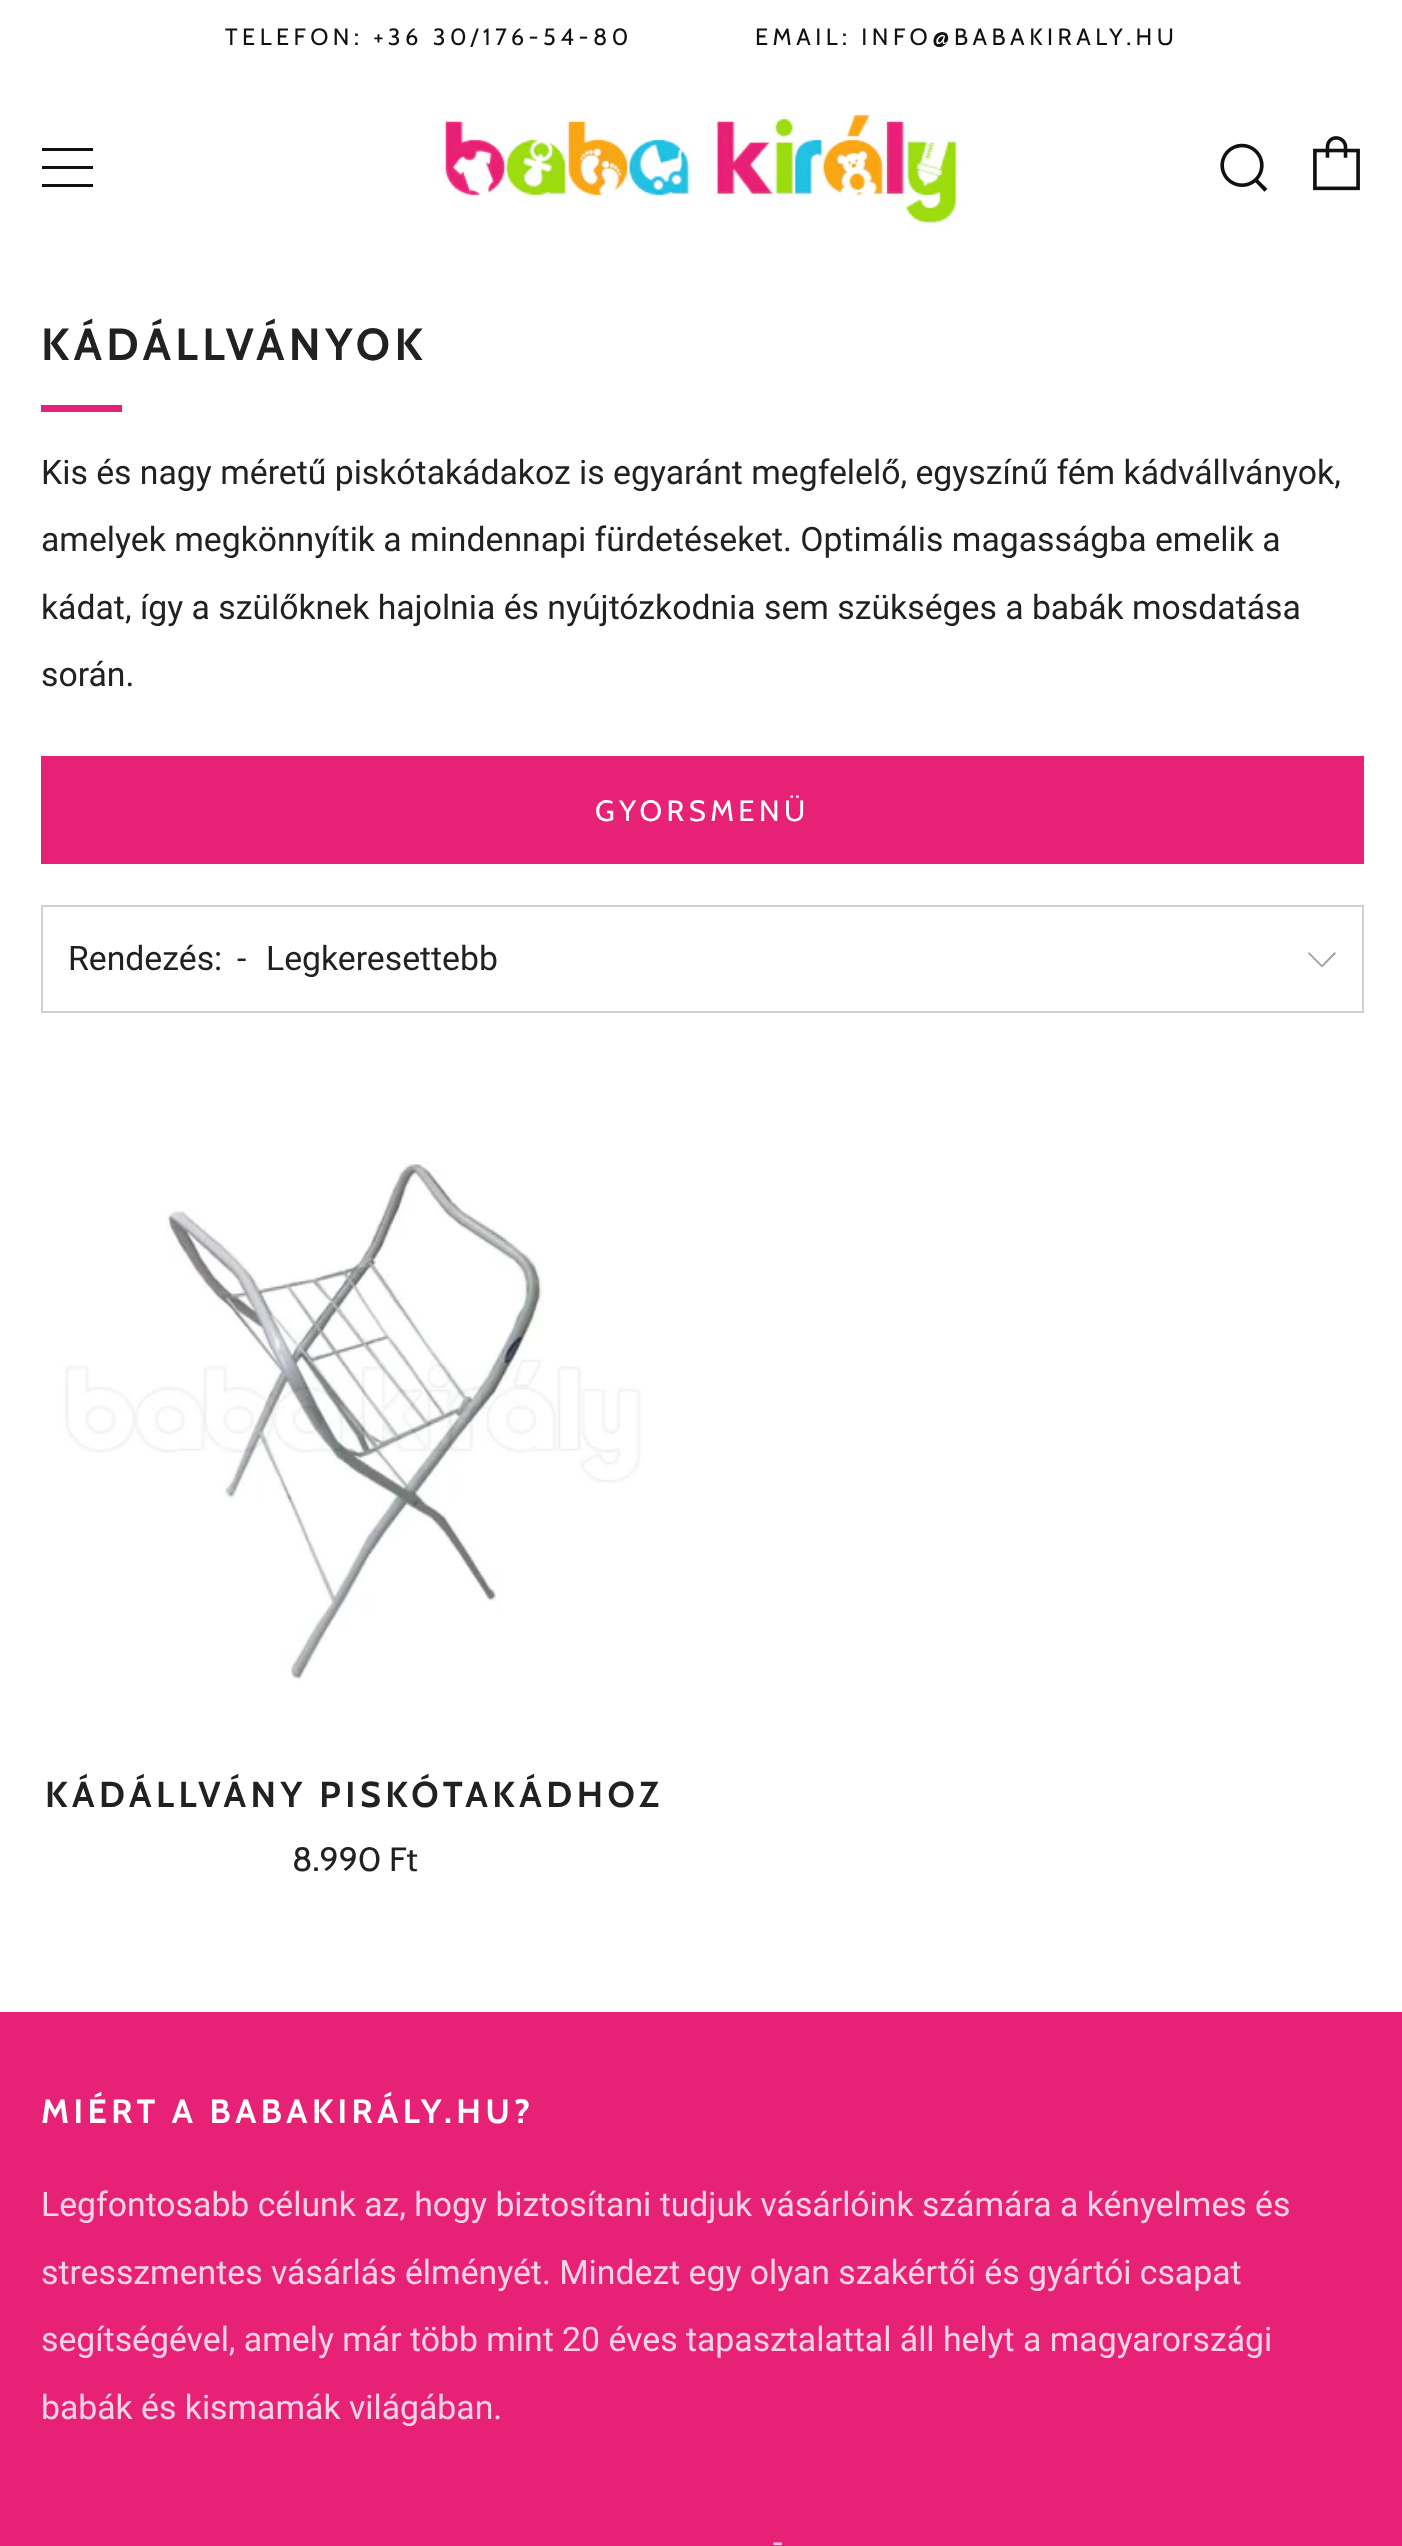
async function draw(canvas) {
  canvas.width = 1402;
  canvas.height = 2546;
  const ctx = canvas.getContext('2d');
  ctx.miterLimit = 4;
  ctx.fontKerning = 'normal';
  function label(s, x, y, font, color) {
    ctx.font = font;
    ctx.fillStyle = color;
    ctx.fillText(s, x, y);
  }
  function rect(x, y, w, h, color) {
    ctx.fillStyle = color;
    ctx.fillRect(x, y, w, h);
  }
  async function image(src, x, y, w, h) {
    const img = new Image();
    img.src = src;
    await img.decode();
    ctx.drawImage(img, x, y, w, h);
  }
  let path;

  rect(0, 0, 1402, 2546, '#fff');
  ctx.letterSpacing = '4.5px';
  label('TELEFON: +36 30/176-54-80', 225, 45, '23.6px Cabin', '#111');
  label('EMAIL: INFO@BABAKIRALY.HU', 755, 45, '23.6px Cabin', '#111');
  path = new Path2D('M42 151H93V148H42ZM42 187H93V184H42ZM42 169H93V166H42Z');
  ctx.fill(path);
  await image('assets/img1.png', 443, 112, 518, 117);
  await image('assets/img2.png', 1220, 143, 48, 49);
  await image('assets/img3.png', 1313, 136, 47, 55);
  label('KÁDÁLLVÁNYOK', 41, 360, 'bold 45px Cabin', '#212121');
  rect(41, 405, 81, 7, '#e72276');
  ctx.letterSpacing = '0px';
  label('Kis és nagy méretű piskótakádakoz is egyaránt megfelelő, egyszínű fém kádvállványok,', 41, 484, '33.75px Roboto', '#212121');
  label('amelyek megkönnyítik a mindennapi fürdetéseket. Optimális magasságba emelik a', 41, 551, '33.75px Roboto', '#212121');
  label('kádat, így a szülőknek hajolnia és nyújtózkodnia sem szükséges a babák mosdatása', 41, 619, '33.75px Roboto', '#212121');
  label('során.', 41, 686, '33.75px Roboto', '#212121');
  rect(41, 756, 1323, 108, '#e72276');
  ctx.letterSpacing = '4.5px';
  label('GYORSMENÜ', 595, 821, '29.25px Cabin', '#fff');
  ctx.strokeStyle = '#cfcfcf';
  ctx.lineWidth = 2;
  ctx.strokeRect(42, 906, 1321, 106);
  ctx.letterSpacing = '0px';
  label('Rendezés:', 68, 970, '33.75px Roboto', '#212121');
  label('-', 237, 970, '33.75px Roboto', '#212121');
  label('Legkeresettebb', 266, 970, '33.75px Roboto', '#212121');
  ctx.fillStyle = '#a0a0a0';
  path = new Path2D('M1309 952L1308 953.5L1322 967.5L1336 953.5L1334.5 952L1322 965Z');
  ctx.fill(path);
  await image('assets/img4.png', 41, 1107, 627, 628);
  ctx.letterSpacing = '4.5px';
  label('KÁDÁLLVÁNY PISKÓTAKÁDHOZ', 45, 1807, 'bold 36px Cabin', '#212121');
  ctx.letterSpacing = '0px';
  label('8.990 Ft', 292, 1871, '33.75px Cabin', '#212121');
  rect(0, 2012, 1402, 534, '#e72276');
  ctx.letterSpacing = '4.5px';
  label('MIÉRT A BABAKIRÁLY.HU?', 41, 2123, 'bold 33.75px Cabin', '#fff');
  ctx.letterSpacing = '0px';
  label('Legfontosabb célunk az, hogy biztosítani tudjuk vásárlóink számára a kényelmes és', 41, 2216, '33.75px Roboto', '#fad3e4');
  label('stresszmentes vásárlás élményét. Mindezt egy olyan szakértői és gyártói csapat', 41, 2284, '33.75px Roboto', '#fad3e4');
  label('segítségével, amely már több mint 20 éves tapasztalattal áll helyt a magyarországi', 41, 2351, '33.75px Roboto', '#fad3e4');
  label('babák és kismamák világában.', 41, 2419, '33.75px Roboto', '#fad3e4');
  label('-', 773, 2554, '33.75px Roboto', '#fad3e4');
}

draw(document.querySelector('canvas'));
